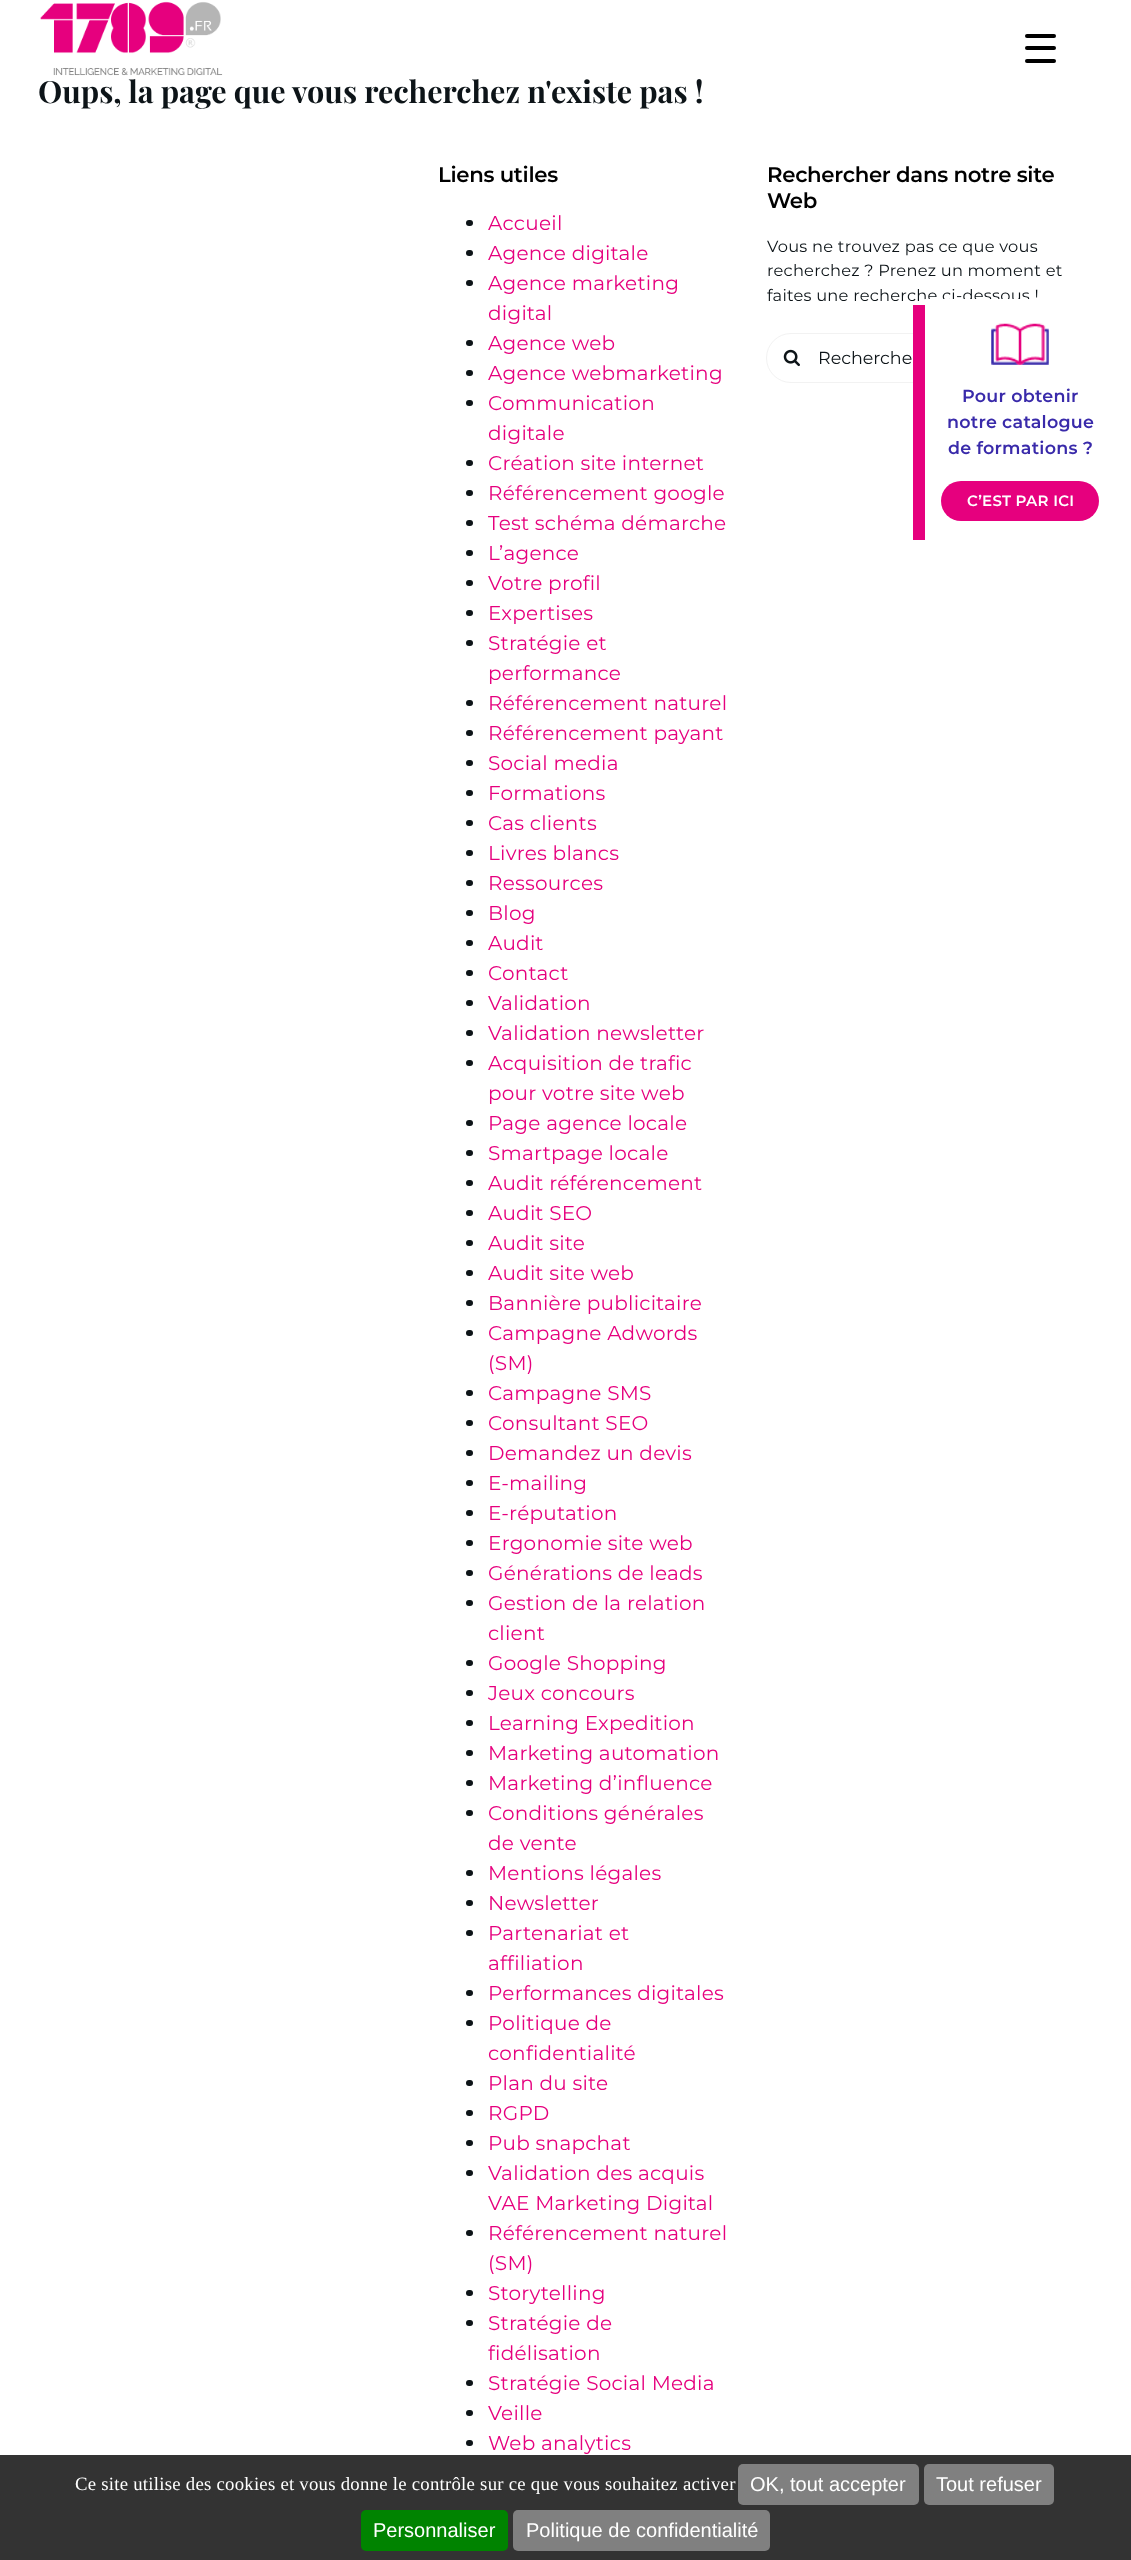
async function draw(canvas) {
  canvas.width = 1131;
  canvas.height = 2560;
  const ctx = canvas.getContext('2d');
  ctx.miterLimit = 4;
  ctx.fontKerning = 'normal';
  function label(s, x, y, font, color) {
    ctx.font = font;
    ctx.fillStyle = color;
    ctx.fillText(s, x, y);
  }
  function rect(x, y, w, h, color) {
    ctx.fillStyle = color;
    ctx.fillRect(x, y, w, h);
  }
  function roundedRect(x, y, w, h, r, color) {
    ctx.fillStyle = color;
    ctx.beginPath();
    ctx.roundRect(x, y, w, h, r);
    ctx.fill();
  }
  async function image(src, x, y, w, h) {
    const img = new Image();
    img.src = src;
    await img.decode();
    ctx.drawImage(img, x, y, w, h);
  }

  rect(0, 0, 1131, 2560, '#fff');
  roundedRect(1025, 46, 31, 4, 2, '#000');
  roundedRect(1025, 34, 31, 4, 2, '#000');
  roundedRect(1025, 59, 31, 4, 2, '#000');
  await image('assets/img1.png', 40, 1, 183, 75);
  label('Oups, la page que vous recherchez n\'existe pas !', 38, 103, 'bold 30.6px Playfair Display', '#0d1418');
  ctx.letterSpacing = '-0.3px';
  label('Liens utiles', 438, 182, '600 21.25px Montserrat', '#000');
  roundedRect(466, 220, 7, 6, 3, '#0d1418');
  ctx.letterSpacing = '0.25px';
  label('Accueil', 488, 230, '20px Montserrat', '#e6007e');
  roundedRect(466, 250, 7, 6, 3, '#0d1418');
  label('Agence digitale', 488, 260, '20px Montserrat', '#e6007e');
  roundedRect(466, 280, 7, 6, 3, '#0d1418');
  label('Agence marketing', 488, 290, '20px Montserrat', '#e6007e');
  label('digital', 488, 320, '20px Montserrat', '#e6007e');
  roundedRect(466, 340, 7, 6, 3, '#0d1418');
  label('Agence web', 488, 350, '20px Montserrat', '#e6007e');
  roundedRect(466, 370, 7, 6, 3, '#0d1418');
  label('Agence webmarketing', 488, 380, '20px Montserrat', '#e6007e');
  roundedRect(466, 400, 7, 6, 3, '#0d1418');
  label('Communication', 488, 410, '20px Montserrat', '#e6007e');
  label('digitale', 488, 440, '20px Montserrat', '#e6007e');
  roundedRect(466, 460, 7, 6, 3, '#0d1418');
  label('Création site internet', 488, 470, '20px Montserrat', '#e6007e');
  roundedRect(466, 490, 7, 6, 3, '#0d1418');
  label('Référencement google', 488, 500, '20px Montserrat', '#e6007e');
  roundedRect(466, 520, 7, 6, 3, '#0d1418');
  label('Test schéma démarche', 488, 530, '20px Montserrat', '#e6007e');
  roundedRect(466, 550, 7, 6, 3, '#0d1418');
  label('L’agence', 488, 560, '20px Montserrat', '#e6007e');
  roundedRect(466, 580, 7, 6, 3, '#0d1418');
  label('Votre profil', 488, 590, '20px Montserrat', '#e6007e');
  roundedRect(466, 610, 7, 6, 3, '#0d1418');
  label('Expertises', 488, 620, '20px Montserrat', '#e6007e');
  roundedRect(466, 640, 7, 6, 3, '#0d1418');
  label('Stratégie et', 488, 650, '20px Montserrat', '#e6007e');
  label('performance', 488, 680, '20px Montserrat', '#e6007e');
  roundedRect(466, 700, 7, 6, 3, '#0d1418');
  label('Référencement naturel', 488, 710, '20px Montserrat', '#e6007e');
  roundedRect(466, 730, 7, 6, 3, '#0d1418');
  label('Référencement payant', 488, 740, '20px Montserrat', '#e6007e');
  roundedRect(466, 760, 7, 6, 3, '#0d1418');
  label('Social media', 488, 770, '20px Montserrat', '#e6007e');
  roundedRect(466, 790, 7, 6, 3, '#0d1418');
  label('Formations', 488, 800, '20px Montserrat', '#e6007e');
  roundedRect(466, 820, 7, 6, 3, '#0d1418');
  label('Cas clients', 488, 830, '20px Montserrat', '#e6007e');
  roundedRect(466, 850, 7, 6, 3, '#0d1418');
  label('Livres blancs', 488, 860, '20px Montserrat', '#e6007e');
  roundedRect(466, 880, 7, 6, 3, '#0d1418');
  label('Ressources', 488, 890, '20px Montserrat', '#e6007e');
  roundedRect(466, 910, 7, 6, 3, '#0d1418');
  label('Blog', 488, 920, '20px Montserrat', '#e6007e');
  roundedRect(466, 940, 7, 6, 3, '#0d1418');
  label('Audit', 488, 950, '20px Montserrat', '#e6007e');
  roundedRect(466, 970, 7, 6, 3, '#0d1418');
  label('Contact', 488, 980, '20px Montserrat', '#e6007e');
  roundedRect(466, 1000, 7, 6, 3, '#0d1418');
  label('Validation', 488, 1010, '20px Montserrat', '#e6007e');
  roundedRect(466, 1030, 7, 6, 3, '#0d1418');
  label('Validation newsletter', 488, 1040, '20px Montserrat', '#e6007e');
  roundedRect(466, 1060, 7, 6, 3, '#0d1418');
  label('Acquisition de trafic', 488, 1070, '20px Montserrat', '#e6007e');
  label('pour votre site web', 488, 1100, '20px Montserrat', '#e6007e');
  roundedRect(466, 1120, 7, 6, 3, '#0d1418');
  label('Page agence locale', 488, 1130, '20px Montserrat', '#e6007e');
  roundedRect(466, 1150, 7, 6, 3, '#0d1418');
  label('Smartpage locale', 488, 1160, '20px Montserrat', '#e6007e');
  roundedRect(466, 1180, 7, 6, 3, '#0d1418');
  label('Audit référencement', 488, 1190, '20px Montserrat', '#e6007e');
  roundedRect(466, 1210, 7, 6, 3, '#0d1418');
  label('Audit SEO', 488, 1220, '20px Montserrat', '#e6007e');
  roundedRect(466, 1240, 7, 6, 3, '#0d1418');
  label('Audit site', 488, 1250, '20px Montserrat', '#e6007e');
  roundedRect(466, 1270, 7, 6, 3, '#0d1418');
  label('Audit site web', 488, 1280, '20px Montserrat', '#e6007e');
  roundedRect(466, 1300, 7, 6, 3, '#0d1418');
  label('Bannière publicitaire', 488, 1310, '20px Montserrat', '#e6007e');
  roundedRect(466, 1330, 7, 6, 3, '#0d1418');
  label('Campagne Adwords', 488, 1340, '20px Montserrat', '#e6007e');
  label('(SM)', 488, 1370, '20px Montserrat', '#e6007e');
  roundedRect(466, 1390, 7, 6, 3, '#0d1418');
  label('Campagne SMS', 488, 1400, '20px Montserrat', '#e6007e');
  roundedRect(466, 1420, 7, 6, 3, '#0d1418');
  label('Consultant SEO', 488, 1430, '20px Montserrat', '#e6007e');
  roundedRect(466, 1450, 7, 6, 3, '#0d1418');
  label('Demandez un devis', 488, 1460, '20px Montserrat', '#e6007e');
  roundedRect(466, 1480, 7, 6, 3, '#0d1418');
  label('E-mailing', 488, 1490, '20px Montserrat', '#e6007e');
  roundedRect(466, 1510, 7, 6, 3, '#0d1418');
  label('E-réputation', 488, 1520, '20px Montserrat', '#e6007e');
  roundedRect(466, 1540, 7, 6, 3, '#0d1418');
  label('Ergonomie site web', 488, 1550, '20px Montserrat', '#e6007e');
  roundedRect(466, 1570, 7, 6, 3, '#0d1418');
  label('Générations de leads', 488, 1580, '20px Montserrat', '#e6007e');
  roundedRect(466, 1600, 7, 6, 3, '#0d1418');
  label('Gestion de la relation', 488, 1610, '20px Montserrat', '#e6007e');
  label('client', 488, 1640, '20px Montserrat', '#e6007e');
  roundedRect(466, 1660, 7, 6, 3, '#0d1418');
  label('Google Shopping', 488, 1670, '20px Montserrat', '#e6007e');
  roundedRect(466, 1690, 7, 6, 3, '#0d1418');
  label('Jeux concours', 488, 1700, '20px Montserrat', '#e6007e');
  roundedRect(466, 1720, 7, 6, 3, '#0d1418');
  label('Learning Expedition', 488, 1730, '20px Montserrat', '#e6007e');
  roundedRect(466, 1750, 7, 6, 3, '#0d1418');
  label('Marketing automation', 488, 1760, '20px Montserrat', '#e6007e');
  roundedRect(466, 1780, 7, 6, 3, '#0d1418');
  label('Marketing d’influence', 488, 1790, '20px Montserrat', '#e6007e');
  roundedRect(466, 1810, 7, 6, 3, '#0d1418');
  label('Conditions générales', 488, 1820, '20px Montserrat', '#e6007e');
  label('de vente', 488, 1850, '20px Montserrat', '#e6007e');
  roundedRect(466, 1870, 7, 6, 3, '#0d1418');
  label('Mentions légales', 488, 1880, '20px Montserrat', '#e6007e');
  roundedRect(466, 1900, 7, 6, 3, '#0d1418');
  label('Newsletter', 488, 1910, '20px Montserrat', '#e6007e');
  roundedRect(466, 1930, 7, 6, 3, '#0d1418');
  label('Partenariat et', 488, 1940, '20px Montserrat', '#e6007e');
  label('affiliation', 488, 1970, '20px Montserrat', '#e6007e');
  roundedRect(466, 1990, 7, 6, 3, '#0d1418');
  label('Performances digitales', 488, 2000, '20px Montserrat', '#e6007e');
  roundedRect(466, 2020, 7, 6, 3, '#0d1418');
  label('Politique de', 488, 2030, '20px Montserrat', '#e6007e');
  label('confidentialité', 488, 2060, '20px Montserrat', '#e6007e');
  roundedRect(466, 2080, 7, 6, 3, '#0d1418');
  label('Plan du site', 488, 2090, '20px Montserrat', '#e6007e');
  roundedRect(466, 2110, 7, 6, 3, '#0d1418');
  label('RGPD', 488, 2120, '20px Montserrat', '#e6007e');
  roundedRect(466, 2140, 7, 6, 3, '#0d1418');
  label('Pub snapchat', 488, 2150, '20px Montserrat', '#e6007e');
  roundedRect(466, 2170, 7, 6, 3, '#0d1418');
  label('Validation des acquis', 488, 2180, '20px Montserrat', '#e6007e');
  label('VAE Marketing Digital', 488, 2210, '20px Montserrat', '#e6007e');
  roundedRect(466, 2230, 7, 6, 3, '#0d1418');
  label('Référencement naturel', 488, 2240, '20px Montserrat', '#e6007e');
  label('(SM)', 488, 2270, '20px Montserrat', '#e6007e');
  roundedRect(466, 2290, 7, 6, 3, '#0d1418');
  label('Storytelling', 488, 2300, '20px Montserrat', '#e6007e');
  roundedRect(466, 2320, 7, 6, 3, '#0d1418');
  label('Stratégie de', 488, 2330, '20px Montserrat', '#e6007e');
  label('fidélisation', 488, 2360, '20px Montserrat', '#e6007e');
  roundedRect(466, 2380, 7, 6, 3, '#0d1418');
  label('Stratégie Social Media', 488, 2390, '20px Montserrat', '#e6007e');
  roundedRect(466, 2410, 7, 6, 3, '#0d1418');
  label('Veille', 488, 2420, '20px Montserrat', '#e6007e');
  roundedRect(466, 2440, 7, 6, 3, '#0d1418');
  label('Web analytics', 488, 2450, '20px Montserrat', '#e6007e');
  ctx.letterSpacing = '-0.3px';
  label('Rechercher dans notre site', 767, 182, '600 21.25px Montserrat', '#000');
  label('Web', 767, 208, '600 21.25px Montserrat', '#000');
  ctx.letterSpacing = '0.25px';
  label('Vous ne trouvez pas ce que vous', 767, 252, '16.25px Montserrat', '#0d1418');
  label('recherchez ? Prenez un moment et', 767, 276, '16.25px Montserrat', '#0d1418');
  label('faites une recherche ci-dessous !', 767, 301, '16.25px Montserrat', '#0d1418');
  ctx.beginPath();
  ctx.roundRect(766.5, 333.5, 327, 49, 24.5);
  ctx.strokeStyle = '#f2f2f2';
  ctx.stroke();
  await image('assets/img2.png', 783, 349, 17, 18);
  ctx.letterSpacing = '0px';
  label('Recherche', 818, 364, '17.5px Montserrat', '#0d1418');
  ctx.fillStyle = '#fff';
  ctx.beginPath();
  ctx.roundRect(913, 299, 202, 247, [13, 0, 0, 13]);
  ctx.fill();
  rect(913, 305, 12, 235, '#e6007e');
  await image('assets/img3.png', 991, 323, 58, 42);
  ctx.letterSpacing = '0.25px';
  label('Pour obtenir', 962, 402, '600 17.5px Montserrat', '#392aaa');
  label('notre catalogue', 947, 428, '600 17.5px Montserrat', '#392aaa');
  label('de formations ?', 948, 454, '600 17.5px Montserrat', '#392aaa');
  roundedRect(941, 481, 158, 40, 20, '#e6007e');
  label('C’EST PAR ICI', 967, 506, '600 15px Montserrat', '#fff');
  rect(0, 2455, 1131, 105, '#333');
  label('Ce site utilise des cookies et vous donne le contrôle sur ce que vous souhaitez activer', 75, 2490, '18.75px Liberation Serif', '#fff');
  roundedRect(738, 2464, 181, 41, 5, '#808080');
  ctx.letterSpacing = '0px';
  label('OK, tout accepter', 750, 2491, '20px Liberation Sans', '#fff');
  roundedRect(924, 2464, 130, 41, 5, '#808080');
  label('Tout refuser', 936, 2491, '20px Liberation Sans', '#fff');
  roundedRect(361, 2510, 147, 41, 5, '#008300');
  label('Personnaliser', 373, 2537, '20px Liberation Sans', '#fff');
  roundedRect(513, 2510, 257, 41, 5, '#808080');
  label('Politique de confidentialité', 526, 2537, '20px Liberation Sans', '#fff');
}

draw(document.querySelector('canvas'));
